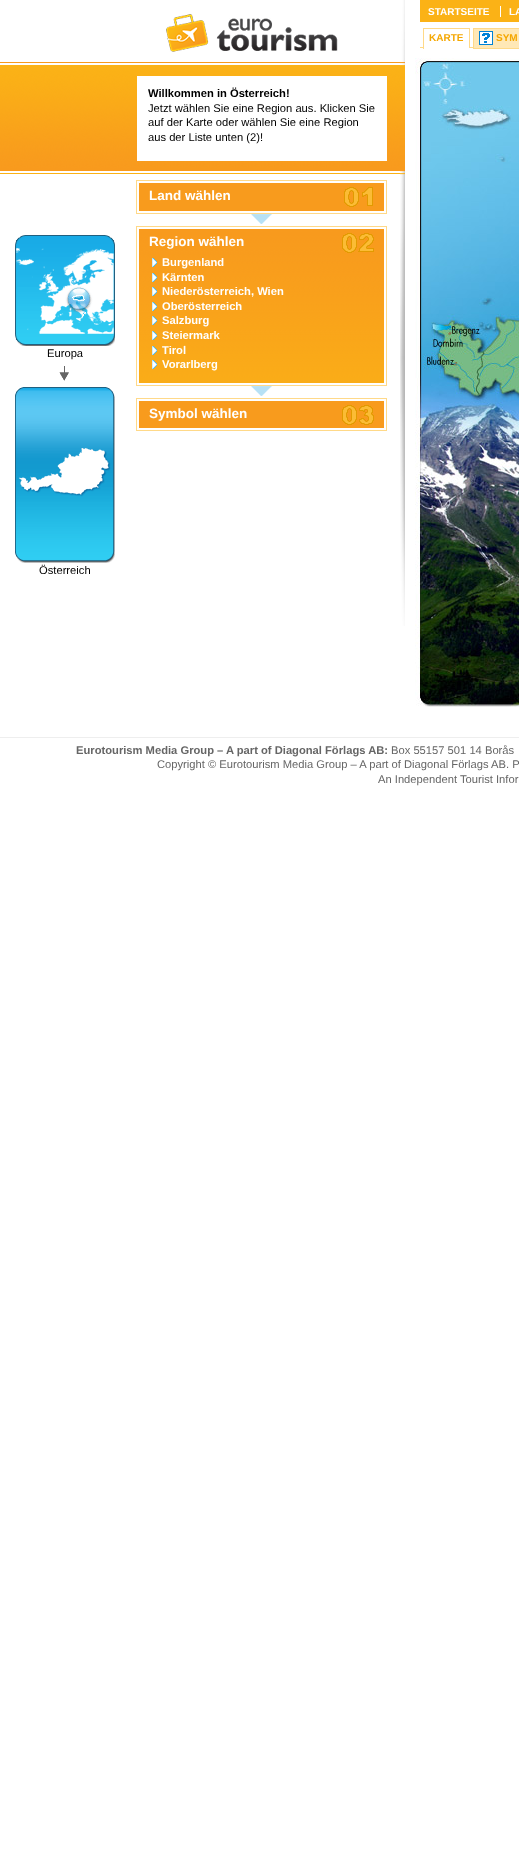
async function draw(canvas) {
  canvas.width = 519;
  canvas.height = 1850;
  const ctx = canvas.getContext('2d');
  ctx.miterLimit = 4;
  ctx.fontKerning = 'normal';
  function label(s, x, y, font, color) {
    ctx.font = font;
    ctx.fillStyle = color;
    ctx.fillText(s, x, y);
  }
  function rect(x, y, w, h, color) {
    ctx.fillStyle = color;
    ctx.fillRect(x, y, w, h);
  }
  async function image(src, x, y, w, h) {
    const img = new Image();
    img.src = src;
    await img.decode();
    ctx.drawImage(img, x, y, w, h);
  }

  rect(0, 0, 519, 1850, '#fff');
  await image('assets/img1.png', 0, 62, 400, 112);
  await image('assets/img2.png', 400, 0, 5, 626);
  rect(420, 0, 99, 22, '#fbb216');
  label('STARTSEITE', 428, 15, 'bold 10px Liberation Sans', '#fff');
  rect(500, 6, 1, 11, '#fff');
  label('LA', 509, 15, 'bold 10px Liberation Sans', '#fff');
  rect(420, 47, 53, 1, '#ffd988');
  rect(424, 47, 45, 1, '#fff');
  rect(423, 28, 47, 1, '#ffd988');
  rect(469, 28, 1, 21, '#ffd988');
  rect(469, 48, 1, 1, '#fff');
  rect(423, 28, 1, 21, '#ffd988');
  label('KARTE', 429, 41, 'bold 10px Liberation Sans', '#f5a700');
  rect(474, 29, 45, 19, '#ffe8b6');
  await image('assets/img3.png', 479, 31, 14, 14);
  ctx.strokeStyle = '#ffd988';
  ctx.strokeRect(473.5, 28.5, 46, 20);
  label('SYM', 496, 41, 'bold 10px Liberation Sans', '#f5a700');
  await image('assets/img4.png', 415, 58, 104, 649);
  await image('assets/img5.png', 166, 14, 172, 38);
  rect(137, 76, 250, 85, '#fff');
  label('Willkommen in Österreich!', 148, 97, 'bold 11.2px Liberation Sans', '#000');
  label('Jetzt wählen Sie eine Region aus. Klicken Sie', 148, 112, '11.2px Liberation Sans', '#000');
  label('auf der Karte oder wählen Sie eine Region', 148, 126, '11.2px Liberation Sans', '#000');
  label('aus der Liste unten (2)!', 148, 141, '11.2px Liberation Sans', '#000');
  ctx.strokeRect(136.5, 180.5, 250, 33);
  rect(139, 183, 245, 28, '#f89b1d');
  await image('assets/img6.png', 344, 187, 29, 20);
  label('Land wählen', 149, 200, 'bold 13.5px Liberation Sans', '#fff');
  await image('assets/img7.png', 251, 214, 21, 10);
  ctx.strokeRect(136.5, 226.5, 250, 159);
  await image('assets/img8.png', 139, 229, 245, 154);
  await image('assets/img9.png', 342, 233, 32, 20);
  label('Region wählen', 149, 246, 'bold 13.5px Liberation Sans', '#fff');
  await image('assets/img10.png', 152, 258, 5, 9);
  label('Burgenland', 162, 266, 'bold 11.2px Liberation Sans', '#fff');
  await image('assets/img11.png', 152, 273, 5, 9);
  label('Kärnten', 162, 281, 'bold 11.2px Liberation Sans', '#fff');
  await image('assets/img12.png', 152, 287, 5, 9);
  label('Niederösterreich, Wien', 162, 295, 'bold 11.2px Liberation Sans', '#fff');
  await image('assets/img13.png', 152, 302, 5, 9);
  label('Oberösterreich', 162, 310, 'bold 11.2px Liberation Sans', '#fff');
  await image('assets/img14.png', 152, 316, 5, 9);
  label('Salzburg', 162, 324, 'bold 11.2px Liberation Sans', '#fff');
  await image('assets/img15.png', 152, 331, 5, 9);
  label('Steiermark', 162, 339, 'bold 11.2px Liberation Sans', '#fff');
  await image('assets/img16.png', 152, 346, 5, 9);
  label('Tirol', 162, 354, 'bold 11.2px Liberation Sans', '#fff');
  await image('assets/img17.png', 152, 360, 5, 9);
  label('Vorarlberg', 162, 368, 'bold 11.2px Liberation Sans', '#fff');
  await image('assets/img7.png', 251, 386, 21, 10);
  ctx.strokeRect(136.5, 398.5, 250, 32);
  rect(139, 401, 245, 27, '#f89b1d');
  await image('assets/img18.png', 342, 405, 32, 20);
  label('Symbol wählen', 149, 418, 'bold 13.5px Liberation Sans', '#fff');
  await image('assets/img19.png', 15, 235, 100, 111);
  label('Europa', 47, 357, '11.2px Liberation Sans', '#000');
  await image('assets/img20.png', 59, 366, 10, 15);
  await image('assets/img21.png', 15, 387, 100, 176);
  label('Österreich', 39, 574, '11.2px Liberation Sans', '#000');
  rect(0, 737, 519, 1, '#eee');
  label('Eurotourism Media Group – A part of Diagonal Förlags AB:', 76, 754, 'bold 11.2px Liberation Sans', '#666');
  label('Box 55157 501 14 Borås', 391, 754, '11.2px Liberation Sans', '#666');
  label('Copyright © Eurotourism Media Group – A part of Diagonal Förlags AB. P', 157, 768, '11.2px Liberation Sans', '#666');
  label('An Independent Tourist Infor', 378, 783, '11.2px Liberation Sans', '#666');
}

draw(document.querySelector('canvas'));
